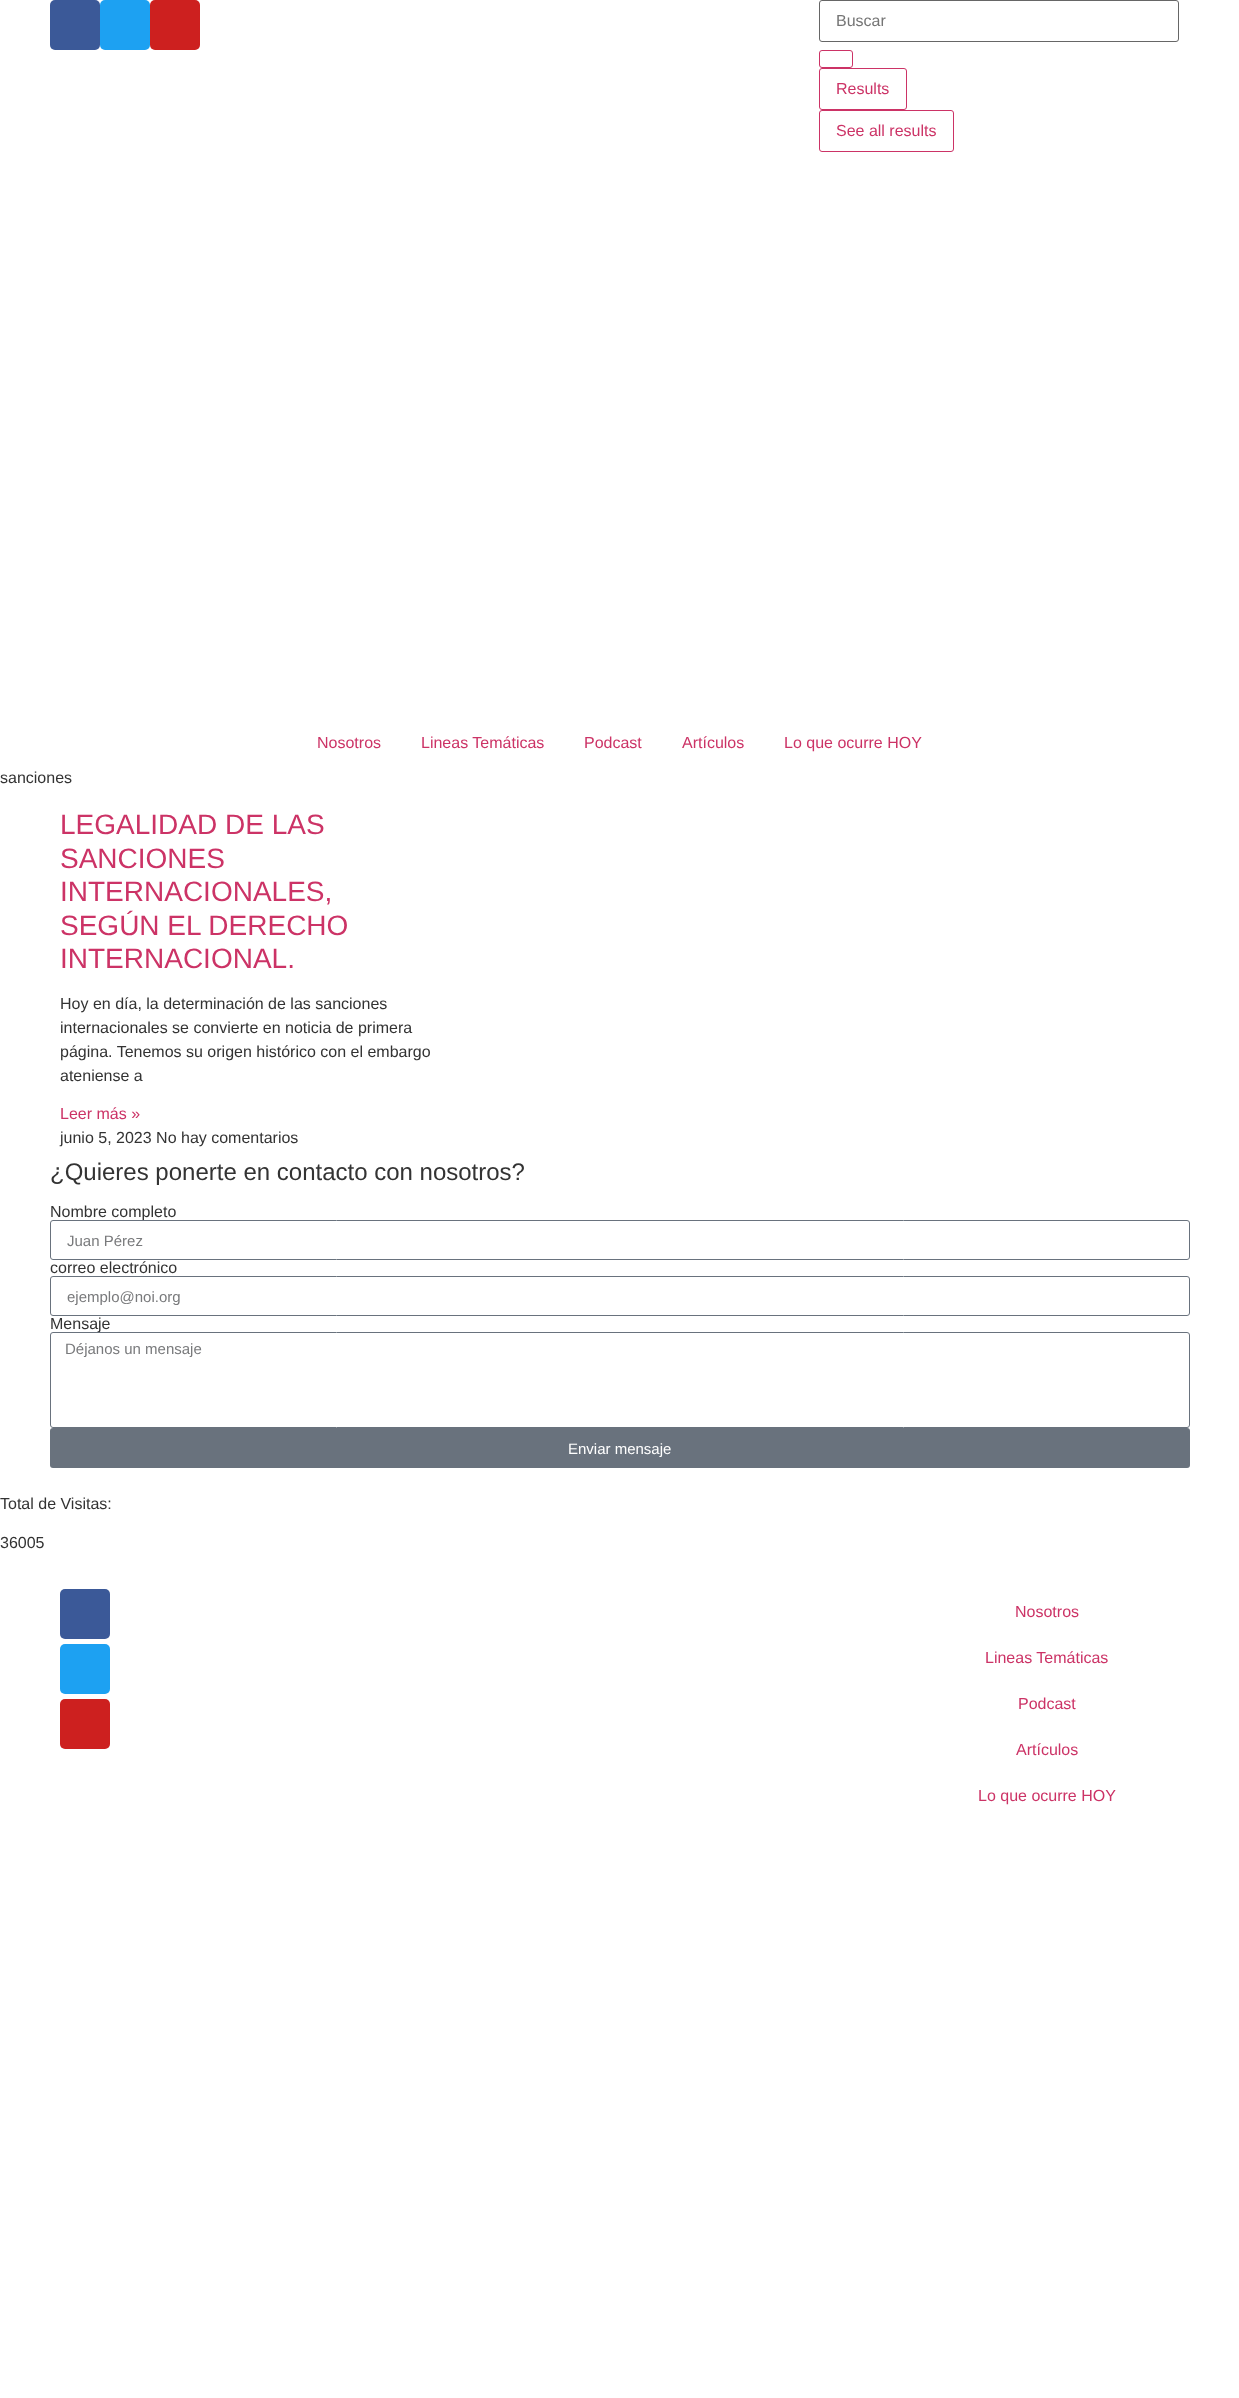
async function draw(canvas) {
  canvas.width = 1239;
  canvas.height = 2398;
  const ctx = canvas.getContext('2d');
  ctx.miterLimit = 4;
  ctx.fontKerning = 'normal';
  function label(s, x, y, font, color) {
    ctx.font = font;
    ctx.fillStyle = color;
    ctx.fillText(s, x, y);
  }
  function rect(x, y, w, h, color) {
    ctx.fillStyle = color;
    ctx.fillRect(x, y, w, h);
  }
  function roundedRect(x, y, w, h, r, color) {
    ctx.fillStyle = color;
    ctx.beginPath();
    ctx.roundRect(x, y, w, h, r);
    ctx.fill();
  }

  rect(0, 0, 1239, 2398, '#fff');
  roundedRect(50, 0, 50, 50, 5, '#3b5998');
  roundedRect(100, 0, 50, 50, 5, '#1da1f2');
  roundedRect(150, 0, 50, 50, 5, '#cd201f');
  ctx.beginPath();
  ctx.roundRect(819.5, 0.5, 359, 41, 2.5);
  ctx.strokeStyle = '#666';
  ctx.stroke();
  label('Buscar', 836, 26, '16px Liberation Sans', '#757575');
  ctx.beginPath();
  ctx.roundRect(819.5, 50.5, 33, 17, 2.5);
  ctx.strokeStyle = '#c36';
  ctx.stroke();
  ctx.beginPath();
  ctx.roundRect(819.5, 68.5, 87, 41, 2.5);
  ctx.stroke();
  label('Results', 836, 94, '16px Liberation Sans', '#c36');
  ctx.beginPath();
  ctx.roundRect(819.5, 110.5, 134, 41, 2.5);
  ctx.stroke();
  label('See all results', 836, 136, '16px Liberation Sans', '#c36');
  label('Nosotros', 317, 748, '16px Liberation Sans', '#c36');
  label('Lineas Temáticas', 421, 748, '16px Liberation Sans', '#c36');
  label('Podcast', 584, 748, '16px Liberation Sans', '#c36');
  label('Artículos', 682, 748, '16px Liberation Sans', '#c36');
  label('Lo que ocurre HOY', 784, 748, '16px Liberation Sans', '#c36');
  label('sanciones', 0, 783, '16px Liberation Sans', '#333');
  label('LEGALIDAD DE LAS', 60, 834, '28px Liberation Sans', '#c36');
  label('SANCIONES', 60, 868, '28px Liberation Sans', '#c36');
  label('INTERNACIONALES,', 60, 901, '28px Liberation Sans', '#c36');
  label('SEGÚN EL DERECHO', 60, 935, '28px Liberation Sans', '#c36');
  label('INTERNACIONAL.', 60, 968, '28px Liberation Sans', '#c36');
  label('Hoy en día, la determinación de las sanciones', 60, 1009, '16px Liberation Sans', '#333');
  label('internacionales se convierte en noticia de primera', 60, 1033, '16px Liberation Sans', '#333');
  label('página. Tenemos su origen histórico con el embargo', 60, 1057, '16px Liberation Sans', '#333');
  label('ateniense a', 60, 1081, '16px Liberation Sans', '#333');
  label('Leer más »', 60, 1119, '16px Liberation Sans', '#c36');
  label('junio 5, 2023 No hay comentarios', 60, 1143, '16px Liberation Sans', '#333');
  label('¿Quieres ponerte en contacto con nosotros?', 50, 1180, '24px Liberation Sans', '#333');
  label('Nombre completo', 50, 1217, '16px Liberation Sans', '#333');
  ctx.beginPath();
  ctx.roundRect(50.5, 1220.5, 1139, 39, 2.5);
  ctx.strokeStyle = '#69727d';
  ctx.stroke();
  label('Juan Pérez', 67, 1246, '15px Liberation Sans', '#797a7c');
  label('correo electrónico', 50, 1273, '16px Liberation Sans', '#333');
  ctx.beginPath();
  ctx.roundRect(50.5, 1276.5, 1139, 39, 2.5);
  ctx.stroke();
  ctx.save();
  ctx.beginPath();
  ctx.rect(67, 1288, 1106, 17);
  ctx.clip();
  label('ejemplo@noi.org', 67, 1302, '15px Liberation Sans', '#797a7c');
  ctx.restore();
  label('Mensaje', 50, 1329, '16px Liberation Sans', '#333');
  ctx.beginPath();
  ctx.roundRect(50.5, 1332.5, 1139, 95, 2.5);
  ctx.stroke();
  label('Déjanos un mensaje', 65, 1354, '15px Liberation Sans', '#797a7c');
  roundedRect(50, 1428, 1140, 40, 3, '#69727d');
  label('Enviar mensaje', 568, 1454, '15px Liberation Sans', '#fff');
  label('Total de Visitas:', 0, 1509, '16px Liberation Sans', '#333');
  label('36005', 0, 1548, '16px Liberation Sans', '#333');
  roundedRect(60, 1589, 50, 50, 5, '#3b5998');
  roundedRect(60, 1644, 50, 50, 5, '#1da1f2');
  roundedRect(60, 1699, 50, 50, 5, '#cd201f');
  label('Nosotros', 1015, 1617, '16px Liberation Sans', '#c36');
  label('Lineas Temáticas', 985, 1663, '16px Liberation Sans', '#c36');
  label('Podcast', 1018, 1709, '16px Liberation Sans', '#c36');
  label('Artículos', 1016, 1755, '16px Liberation Sans', '#c36');
  label('Lo que ocurre HOY', 978, 1801, '16px Liberation Sans', '#c36');
}

draw(document.querySelector('canvas'));
